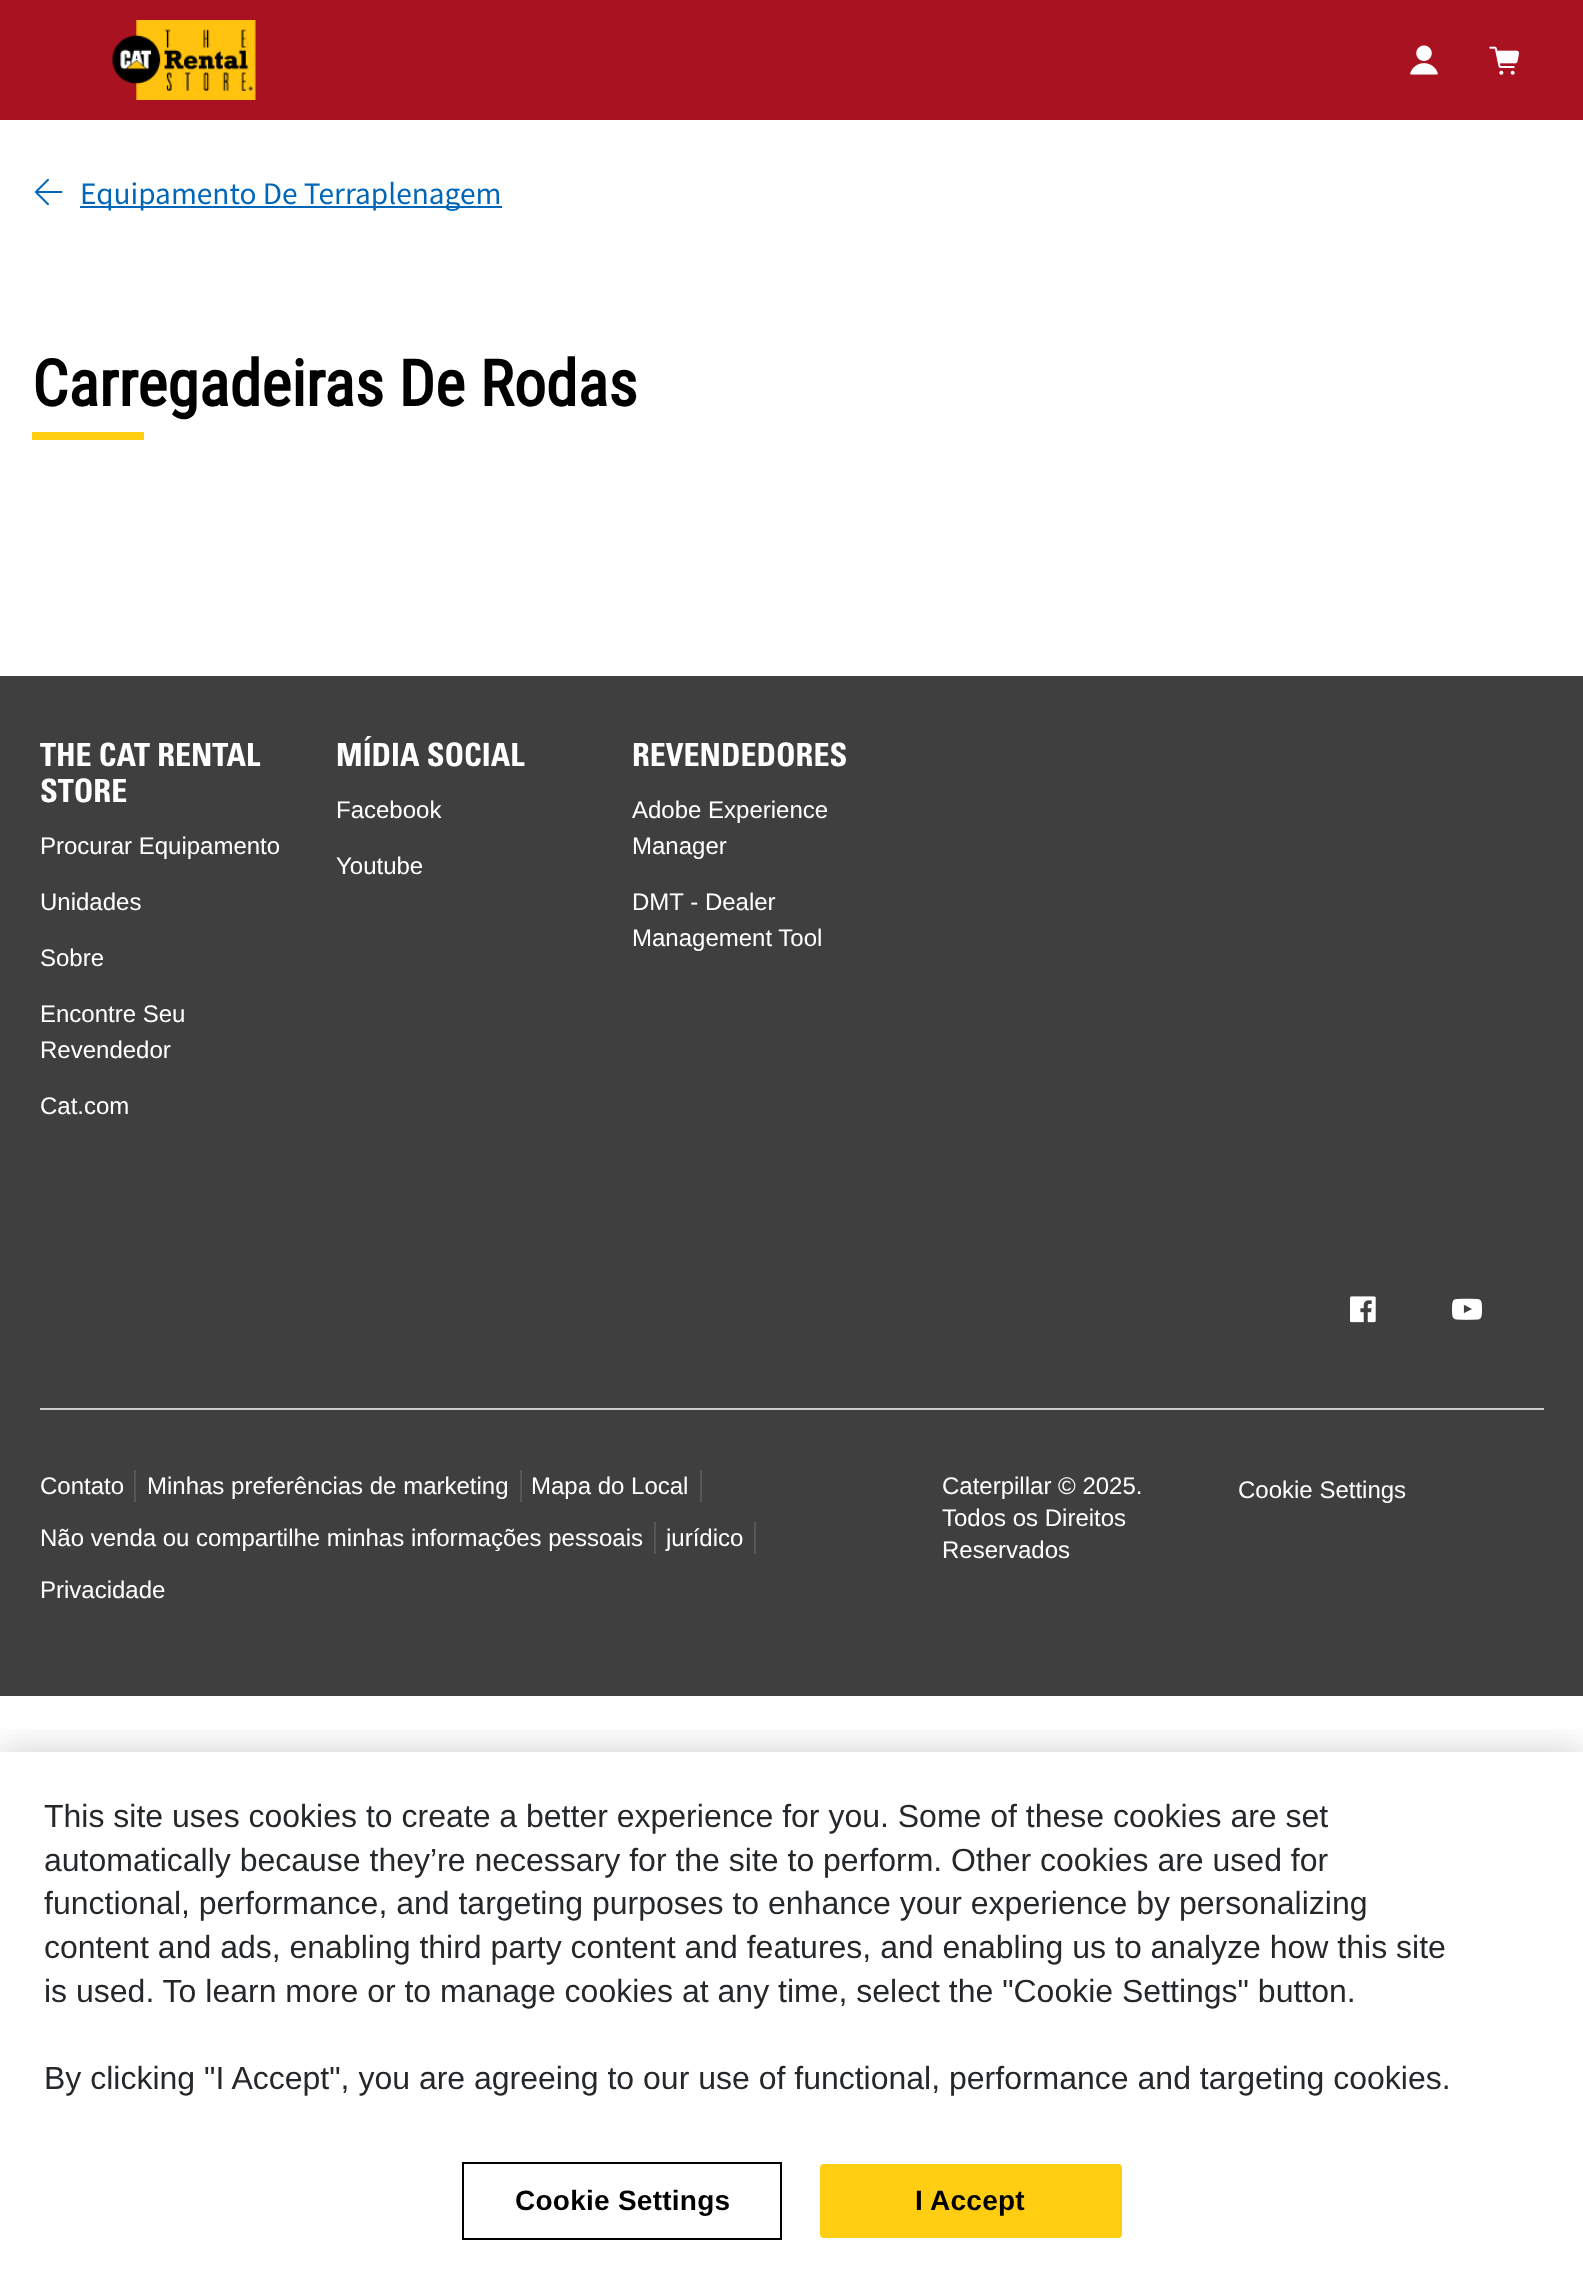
async function draw(canvas) {
  canvas.width = 1583;
  canvas.height = 2279;
  const ctx = canvas.getContext('2d');
  ctx.miterLimit = 4;
  ctx.fontKerning = 'normal';
  function label(s, x, y, font, color) {
    ctx.font = font;
    ctx.fillStyle = color;
    ctx.fillText(s, x, y);
  }
  function rect(x, y, w, h, color) {
    ctx.fillStyle = color;
    ctx.fillRect(x, y, w, h);
  }
  function roundedRect(x, y, w, h, r, color) {
    ctx.fillStyle = color;
    ctx.beginPath();
    ctx.roundRect(x, y, w, h, r);
    ctx.fill();
  }
  async function image(src, x, y, w, h) {
    const img = new Image();
    img.src = src;
    await img.decode();
    ctx.drawImage(img, x, y, w, h);
  }

  rect(0, 0, 1583, 2279, '#fff');
  rect(0, 0, 1583, 120, '#a91221');
  await image('assets/img1.png', 112, 20, 144, 80);
  await image('assets/img2.png', 1410, 45, 28, 30);
  await image('assets/img3.png', 1489, 46, 30, 29);
  await image('assets/img4.png', 34, 178, 29, 28);
  rect(80, 206, 422, 2, '#0067b8');
  label('Equipamento De Terraplenagem', 80, 204, '28px Noto Sans JP', '#0067b8');
  label('Carregadeiras De Rodas', 32, 406, 'bold 64px Roboto Condensed', '#000');
  rect(32, 432, 112, 8, '#ffcd11');
  rect(0, 676, 1583, 1020, '#3f3f3f');
  label('THE CAT RENTAL', 40, 766, 'bold 32px "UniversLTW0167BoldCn"', '#fff');
  label('STORE', 40, 802, 'bold 32px "UniversLTW0167BoldCn"', '#fff');
  label('Procurar Equipamento', 40, 854, '24px Liberation Sans', '#fff');
  label('Unidades', 40, 910, '24px Liberation Sans', '#fff');
  label('Sobre', 40, 966, '24px Liberation Sans', '#fff');
  label('Encontre Seu', 40, 1022, '24px Liberation Sans', '#fff');
  label('Revendedor', 40, 1058, '24px Liberation Sans', '#fff');
  label('Cat.com', 40, 1114, '24px Liberation Sans', '#fff');
  label('MÍDIA SOCIAL', 336, 766, 'bold 32px "UniversLTW0167BoldCn"', '#fff');
  label('Facebook', 336, 818, '24px Liberation Sans', '#fff');
  label('Youtube', 336, 874, '24px Liberation Sans', '#fff');
  label('REVENDEDORES', 632, 766, 'bold 32px "UniversLTW0167BoldCn"', '#fff');
  label('Adobe Experience', 632, 818, '24px Liberation Sans', '#fff');
  label('Manager', 632, 854, '24px Liberation Sans', '#fff');
  label('DMT - Dealer', 632, 910, '24px Liberation Sans', '#fff');
  label('Management Tool', 632, 946, '24px Liberation Sans', '#fff');
  await image('assets/img5.png', 1350, 1296, 26, 27);
  await image('assets/img6.png', 1452, 1298, 30, 22);
  rect(40, 1408, 1504, 2, '#ccc');
  rect(134, 1470, 2, 32, '#565656');
  label('Contato', 40, 1494, '24px Liberation Sans', '#fff');
  rect(520, 1470, 2, 32, '#565656');
  label('Minhas preferências de marketing', 147, 1494, '24px Liberation Sans', '#fff');
  rect(700, 1470, 2, 32, '#565656');
  label('Mapa do Local', 531, 1494, '24px Liberation Sans', '#fff');
  rect(654, 1522, 2, 32, '#565656');
  label('Não venda ou compartilhe minhas informações pessoais', 40, 1546, '24px Liberation Sans', '#fff');
  rect(754, 1522, 2, 32, '#565656');
  label('jurídico', 666, 1546, '24px Liberation Sans', '#fff');
  label('Privacidade', 40, 1598, '24px Liberation Sans', '#fff');
  label('Caterpillar © 2025.', 942, 1494, '24px Liberation Sans', '#fff');
  label('Todos os Direitos', 942, 1526, '24px Liberation Sans', '#fff');
  label('Reservados', 942, 1558, '24px Liberation Sans', '#fff');
  label('Cookie Settings', 1238, 1498, '24px Liberation Sans', '#fff');
  ctx.save();
  ctx.beginPath();
  ctx.rect(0, 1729, 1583, 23);
  ctx.clip();
  ctx.fillStyle = '#00000033';
  ctx.filter = 'blur(18px)';
  ctx.beginPath();
  ctx.rect(0, 1752, 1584, 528);
  ctx.fill();
  ctx.filter = 'none';
  ctx.restore();
  label('This site uses cookies to create a better experience for you. Some of these cookies are set', 44, 1827, '32px Liberation Sans', '#25282b');
  label('automatically because they’re necessary for the site to perform. Other cookies are used for', 44, 1871, '32px Liberation Sans', '#25282b');
  label('functional, performance, and targeting purposes to enhance your experience by personalizing', 44, 1914, '32px Liberation Sans', '#25282b');
  label('content and ads, enabling third party content and features, and enabling us to analyze how this site', 44, 1958, '32px Liberation Sans', '#25282b');
  label('is used. To learn more or to manage cookies at any time, select the "Cookie Settings" button.', 44, 2002, '32px Liberation Sans', '#25282b');
  label('By clicking "I Accept", you are agreeing to our use of functional, performance and targeting cookies.', 44, 2089, '32px Liberation Sans', '#25282b');
  ctx.strokeStyle = '#000';
  ctx.lineWidth = 2;
  ctx.strokeRect(463, 2163, 318, 76);
  ctx.letterSpacing = '0.25px';
  label('Cookie Settings', 515, 2210, 'bold 28px Liberation Sans', '#000');
  roundedRect(820, 2164, 302, 74, 4, '#ffcd11');
  label('I Accept', 915, 2210, 'bold 28px Liberation Sans', '#000');
}

draw(document.querySelector('canvas'));
